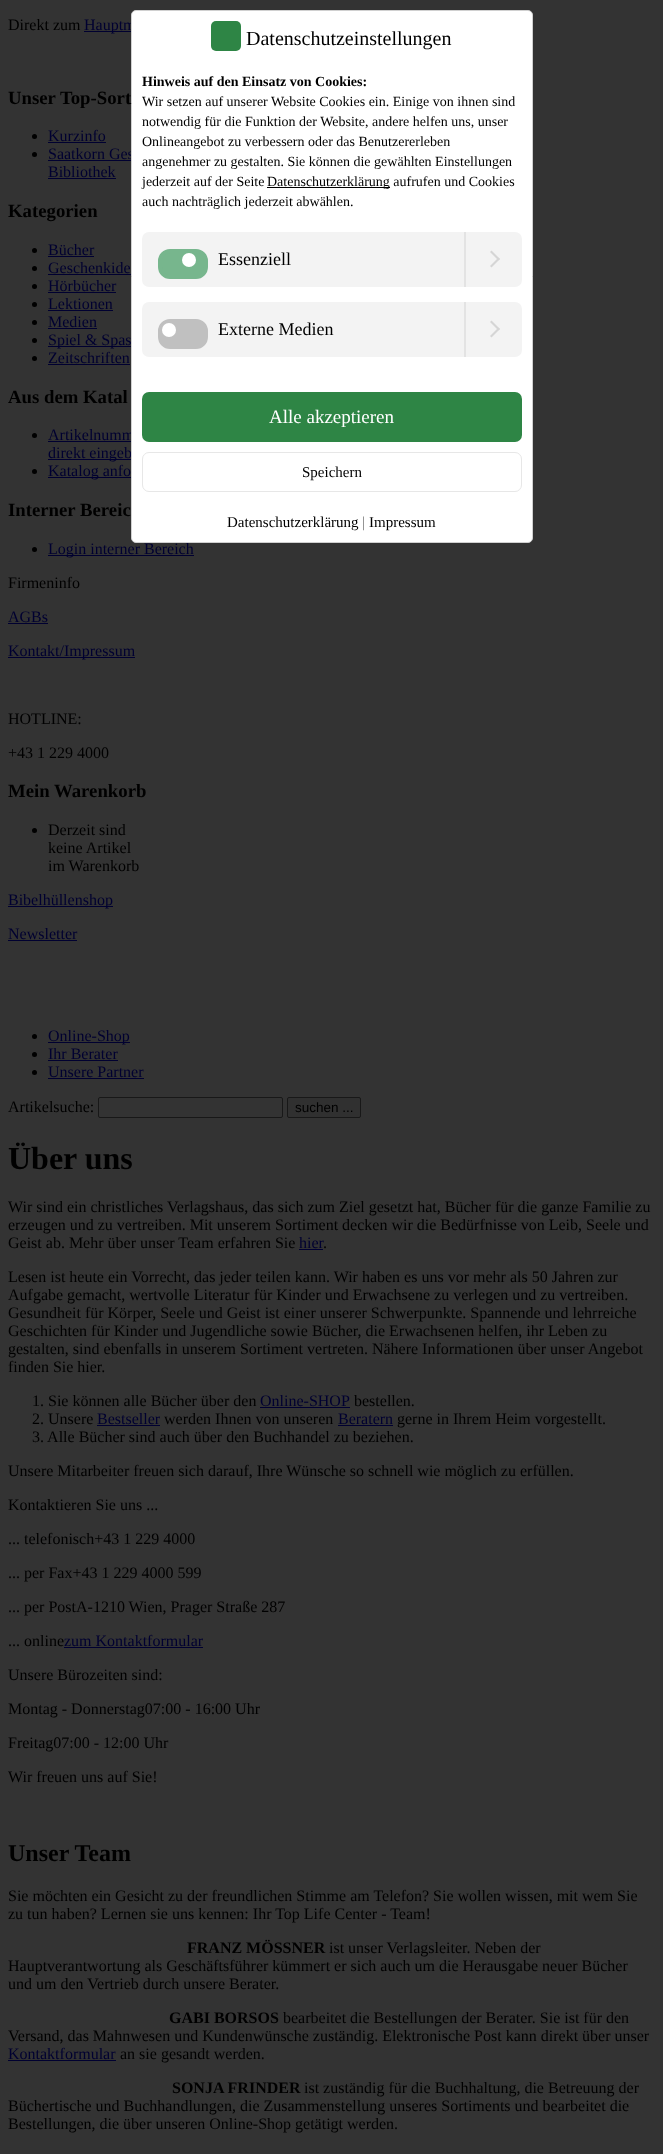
async function draw(canvas) {
  canvas.width = 663;
  canvas.height = 2154;
  const ctx = canvas.getContext('2d');
  ctx.miterLimit = 4;
  ctx.fontKerning = 'normal';
  function label(s, x, y, font, color) {
    ctx.font = font;
    ctx.fillStyle = color;
    ctx.fillText(s, x, y);
  }
  function rect(x, y, w, h, color) {
    ctx.fillStyle = color;
    ctx.fillRect(x, y, w, h);
  }
  function roundedRect(x, y, w, h, r, color) {
    ctx.fillStyle = color;
    ctx.beginPath();
    ctx.roundRect(x, y, w, h, r);
    ctx.fill();
  }
  let path;

  rect(0, 0, 663, 2154, '#333');
  label('Direkt zum', 8, 30, '16px Liberation Serif', '#000');
  rect(84, 31, 47, 1, '#000030');
  label('Hauptm', 84, 30, '16px Liberation Serif', '#000030');
  label('Saatkorn Ges', 48, 159, '16px Liberation Serif', '#000030');
  rect(48, 346, 90, 1, '#000030');
  label('Artikelnumm', 48, 440, '16px Liberation Serif', '#000030');
  rect(48, 459, 83, 1, '#000030');
  label('direkt eingeb', 48, 458, '16px Liberation Serif', '#000030');
  rect(48, 555, 146, 1, '#000030');
  label('Login interner Bereich', 48, 554, '16px Liberation Serif', '#000030');
  ctx.fillStyle = '#fff';
  ctx.beginPath();
  ctx.roundRect(131.5, 10.5, 401, 532, 4.5);
  ctx.fill();
  ctx.strokeStyle = '#d0d0d0';
  ctx.stroke();
  roundedRect(211, 21, 30, 30, 5, '#2e8545');
  label('Datenschutzeinstellungen', 246, 45, '20px Liberation Serif', '#000');
  label('Hinweis auf den Einsatz von Cookies:', 142, 86, 'bold 14px Liberation Serif', '#000');
  label('Wir setzen auf unserer Website Cookies ein. Einige von ihnen sind', 142, 106, '14px Liberation Serif', '#000');
  label('notwendig für die Funktion der Website, andere helfen uns, unser', 142, 126, '14px Liberation Serif', '#000');
  label('Onlineangebot zu verbessern oder das Benutzererleben', 142, 146, '14px Liberation Serif', '#000');
  label('angenehmer zu gestalten. Sie können die gewählten Einstellungen', 142, 166, '14px Liberation Serif', '#000');
  label('jederzeit auf der Seite', 142, 186, '14px Liberation Serif', '#000');
  rect(267, 187, 123, 1, '#000');
  label('Datenschutzerklärung aufrufen und Cookies', 267, 186, '14px Liberation Serif', '#000');
  label('auch nachträglich jederzeit abwählen.', 142, 206, '14px Liberation Serif', '#000');
  roundedRect(142, 232, 380, 55, 7, '#f3f3f3');
  ctx.fillStyle = '#77b68d';
  ctx.beginPath();
  ctx.roundRect(160, 251, 46, 26, 10);
  ctx.fill();
  ctx.strokeStyle = '#77b68d';
  ctx.lineWidth = 4;
  ctx.stroke();
  ctx.fillStyle = '#fff';
  ctx.beginPath();
  ctx.arc(189, 260, 7, 0, 2 * Math.PI);
  ctx.fill();
  label('Essenziell', 218, 265, '18px Liberation Serif', '#000');
  rect(464, 232, 2, 55, '#e3e3e3');
  ctx.fillStyle = '#d5d5d5';
  path = new Path2D('M491.5 250.5L500 259L498.5 260.5L490 252Z');
  ctx.fill(path);
  path = new Path2D('M498.5 257.5L500 259L491.5 267.5L490 266Z');
  ctx.fill(path);
  roundedRect(142, 302, 380, 55, 7, '#f3f3f3');
  ctx.fillStyle = '#c0c0c0';
  ctx.beginPath();
  ctx.roundRect(160, 321, 46, 26, 10);
  ctx.fill();
  ctx.strokeStyle = '#c0c0c0';
  ctx.stroke();
  ctx.fillStyle = '#fff';
  ctx.beginPath();
  ctx.arc(169, 330, 7, 0, 2 * Math.PI);
  ctx.fill();
  label('Externe Medien', 218, 335, '18px Liberation Serif', '#000');
  rect(464, 302, 2, 55, '#e3e3e3');
  ctx.fillStyle = '#d5d5d5';
  path = new Path2D('M491.5 320.5L500 329L498.5 330.5L490 322Z');
  ctx.fill(path);
  path = new Path2D('M498.5 327.5L500 329L491.5 337.5L490 336Z');
  ctx.fill(path);
  roundedRect(142, 392, 380, 50, 7, '#2e8545');
  label('Alle akzeptieren', 269, 423, '19px Liberation Serif', '#fff');
  ctx.beginPath();
  ctx.roundRect(142.5, 452.5, 379, 39, 6.5);
  ctx.strokeStyle = '#e7e7e7';
  ctx.lineWidth = 1;
  ctx.stroke();
  label('Speichern', 302, 477, '15px Liberation Serif', '#000');
  label('Datenschutzerklärung', 227, 527, '15px Liberation Serif', '#000');
  label('|', 362, 527, '15px Liberation Serif', '#757575');
  label('Impressum', 369, 527, '15px Liberation Serif', '#000');
  label('Unser Top-Sort', 8, 104, 'bold 18.75px Liberation Serif', '#000');
  ctx.beginPath();
  ctx.arc(34.5, 136.5, 2.5, 0, 2 * Math.PI);
  ctx.fill();
  label('Kurzinfo', 48, 141, '16px Liberation Serif', '#000030');
  rect(48, 142, 58, 1, '#000030');
  ctx.fillStyle = '#000';
  ctx.beginPath();
  ctx.arc(34.5, 154.5, 2.5, 0, 2 * Math.PI);
  ctx.fill();
  rect(48, 160, 83, 1, '#000030');
  label('Bibliothek', 48, 177, '16px Liberation Serif', '#000030');
  rect(48, 178, 68, 1, '#000030');
  label('Kategorien', 8, 217, 'bold 18.75px Liberation Serif', '#000');
  ctx.beginPath();
  ctx.arc(34.5, 250.5, 2.5, 0, 2 * Math.PI);
  ctx.fill();
  label('Bücher', 48, 255, '16px Liberation Serif', '#000030');
  rect(48, 256, 46, 1, '#000030');
  ctx.fillStyle = '#000';
  ctx.beginPath();
  ctx.arc(34.5, 268.5, 2.5, 0, 2 * Math.PI);
  ctx.fill();
  label('Geschenkide', 48, 273, '16px Liberation Serif', '#000030');
  rect(48, 274, 83, 1, '#000030');
  ctx.fillStyle = '#000';
  ctx.beginPath();
  ctx.arc(34.5, 286.5, 2.5, 0, 2 * Math.PI);
  ctx.fill();
  label('Hörbücher', 48, 291, '16px Liberation Serif', '#000030');
  rect(48, 292, 68, 1, '#000030');
  ctx.fillStyle = '#000';
  ctx.beginPath();
  ctx.arc(34.5, 304.5, 2.5, 0, 2 * Math.PI);
  ctx.fill();
  label('Lektionen', 48, 309, '16px Liberation Serif', '#000030');
  rect(48, 310, 65, 1, '#000030');
  ctx.fillStyle = '#000';
  ctx.beginPath();
  ctx.arc(34.5, 322.5, 2.5, 0, 2 * Math.PI);
  ctx.fill();
  label('Medien', 48, 327, '16px Liberation Serif', '#000030');
  rect(48, 328, 49, 1, '#000030');
  ctx.fillStyle = '#000';
  ctx.beginPath();
  ctx.arc(34.5, 340.5, 2.5, 0, 2 * Math.PI);
  ctx.fill();
  label('Spiel & Spas', 48, 345, '16px Liberation Serif', '#000030');
  ctx.fillStyle = '#000';
  ctx.beginPath();
  ctx.arc(34.5, 358.5, 2.5, 0, 2 * Math.PI);
  ctx.fill();
  label('Zeitschriften', 48, 363, '16px Liberation Serif', '#000030');
  rect(48, 364, 82, 1, '#000030');
  label('Aus dem Katal', 8, 403, 'bold 18.75px Liberation Serif', '#000');
  ctx.beginPath();
  ctx.arc(34.5, 435.5, 2.5, 0, 2 * Math.PI);
  ctx.fill();
  rect(48, 441, 83, 1, '#000030');
  ctx.fillStyle = '#000';
  ctx.beginPath();
  ctx.arc(34.5, 471.5, 2.5, 0, 2 * Math.PI);
  ctx.fill();
  rect(48, 477, 83, 1, '#000030');
  label('Katalog anfo', 48, 476, '16px Liberation Serif', '#000030');
  label('Interner Bereic', 8, 516, 'bold 18.75px Liberation Serif', '#000');
  ctx.beginPath();
  ctx.arc(34.5, 549.5, 2.5, 0, 2 * Math.PI);
  ctx.fill();
  label('Firmeninfo', 8, 588, '16px Liberation Serif', '#000');
  label('AGBs', 8, 622, '16px Liberation Serif', '#000030');
  rect(8, 623, 40, 1, '#000030');
  rect(8, 657, 127, 1, '#000030');
  label('Kontakt/Impressum', 8, 656, '16px Liberation Serif', '#000030');
  label('HOTLINE:', 8, 724, '16px Liberation Serif', '#000');
  label('+43 1 229 4000', 8, 758, '16px Liberation Serif', '#000');
  label('Mein Warenkorb', 8, 797, 'bold 18.75px Liberation Serif', '#000');
  ctx.beginPath();
  ctx.arc(34.5, 830.5, 2.5, 0, 2 * Math.PI);
  ctx.fill();
  label('Derzeit sind', 48, 835, '16px Liberation Serif', '#000');
  label('keine Artikel', 48, 853, '16px Liberation Serif', '#000');
  label('im Warenkorb', 48, 871, '16px Liberation Serif', '#000');
  rect(8, 906, 105, 1, '#000030');
  label('Bibelhüllenshop', 8, 905, '16px Liberation Serif', '#000030');
  label('Newsletter', 8, 939, '16px Liberation Serif', '#000030');
  rect(8, 940, 69, 1, '#000030');
  ctx.fillStyle = '#000';
  ctx.beginPath();
  ctx.arc(34.5, 1036.5, 2.5, 0, 2 * Math.PI);
  ctx.fill();
  rect(48, 1042, 82, 1, '#000030');
  label('Online-Shop', 48, 1041, '16px Liberation Serif', '#000030');
  ctx.fillStyle = '#000';
  ctx.beginPath();
  ctx.arc(34.5, 1054.5, 2.5, 0, 2 * Math.PI);
  ctx.fill();
  label('Ihr Berater', 48, 1059, '16px Liberation Serif', '#000030');
  rect(48, 1060, 70, 1, '#000030');
  ctx.fillStyle = '#000';
  ctx.beginPath();
  ctx.arc(34.5, 1072.5, 2.5, 0, 2 * Math.PI);
  ctx.fill();
  label('Unsere Partner', 48, 1077, '16px Liberation Serif', '#000030');
  rect(48, 1078, 96, 1, '#000030');
  label('Artikelsuche:', 8, 1112, '16px Liberation Serif', '#000');
  ctx.beginPath();
  ctx.roundRect(98.5, 1097.5, 184, 20, 1.5);
  ctx.strokeStyle = '#181818';
  ctx.stroke();
  ctx.fillStyle = '#303030';
  ctx.beginPath();
  ctx.roundRect(287.5, 1097.5, 73, 20, 1.5);
  ctx.fill();
  ctx.stroke();
  label('suchen ...', 295, 1112, '13.5px Liberation Sans', '#000');
  label('Über uns', 8, 1169, 'bold 32px Liberation Serif', '#000');
  label('Wir sind ein christliches Verlagshaus, das sich zum Ziel gesetzt hat, Bücher für die ganze Familie zu', 8, 1212, '16px Liberation Serif', '#000');
  label('erzeugen und zu vertreiben. Mit unserem Sortiment decken wir die Bedürfnisse von Leib, Seele und', 8, 1230, '16px Liberation Serif', '#000');
  label('Geist ab. Mehr über unser Team erfahren Sie', 8, 1248, '16px Liberation Serif', '#000');
  label('hier', 299, 1248, '16px Liberation Serif', '#000030');
  rect(299, 1249, 24, 1, '#000030');
  label('.', 323, 1248, '16px Liberation Serif', '#000');
  label('Lesen ist heute ein Vorrecht, das jeder teilen kann. Wir haben es uns vor mehr als 50 Jahren zur', 8, 1282, '16px Liberation Serif', '#000');
  label('Aufgabe gemacht, wertvolle Literatur für Kinder und Erwachsene zu verlegen und zu vertreiben.', 8, 1300, '16px Liberation Serif', '#000');
  label('Gesundheit für Körper, Seele und Geist ist einer unserer Schwerpunkte. Spannende und lehrreiche', 8, 1318, '16px Liberation Serif', '#000');
  label('Geschichten für Kinder und Jugendliche sowie Bücher, die Erwachsenen helfen, ihr Leben zu', 8, 1336, '16px Liberation Serif', '#000');
  label('gestalten, sind ebenfalls in unserem Sortiment vertreten. Nähere Informationen über unser Angebot', 8, 1354, '16px Liberation Serif', '#000');
  label('finden Sie hier.', 8, 1372, '16px Liberation Serif', '#000');
  label('1. Sie können alle Bücher über den', 32, 1406, '16px Liberation Serif', '#000');
  label('Online-SHOP', 260, 1406, '16px Liberation Serif', '#000030');
  rect(260, 1407, 90, 1, '#000030');
  label('bestellen.', 354, 1406, '16px Liberation Serif', '#000');
  label('2. Unsere', 32, 1424, '16px Liberation Serif', '#000');
  label('Bestseller', 97, 1424, '16px Liberation Serif', '#000030');
  rect(97, 1425, 63, 1, '#000030');
  label('werden Ihnen von unseren', 164, 1424, '16px Liberation Serif', '#000');
  label('Beratern', 338, 1424, '16px Liberation Serif', '#000030');
  rect(338, 1425, 55, 1, '#000030');
  label('gerne in Ihrem Heim vorgestellt.', 397, 1424, '16px Liberation Serif', '#000');
  label('3. Alle Bücher sind auch über den Buchhandel zu beziehen.', 32, 1442, '16px Liberation Serif', '#000');
  label('Unsere Mitarbeiter freuen sich darauf, Ihre Wünsche so schnell wie möglich zu erfüllen.', 8, 1476, '16px Liberation Serif', '#000');
  label('Kontaktieren Sie uns ...', 8, 1510, '16px Liberation Serif', '#000');
  label('... telefonisch+43 1 229 4000', 8, 1544, '16px Liberation Serif', '#000');
  label('... per Fax+43 1 229 4000 599', 8, 1578, '16px Liberation Serif', '#000');
  label('... per PostA-1210 Wien, Prager Straße 287', 8, 1612, '16px Liberation Serif', '#000');
  label('... online', 8, 1646, '16px Liberation Serif', '#000');
  label('zum Kontaktformular', 64, 1646, '16px Liberation Serif', '#000030');
  rect(64, 1647, 139, 1, '#000030');
  label('Unsere Bürozeiten sind:', 8, 1680, '16px Liberation Serif', '#000');
  label('Montag - Donnerstag07:00 - 16:00 Uhr', 8, 1714, '16px Liberation Serif', '#000');
  label('Freitag07:00 - 12:00 Uhr', 8, 1748, '16px Liberation Serif', '#000');
  label('Wir freuen uns auf Sie!', 8, 1782, '16px Liberation Serif', '#000');
  label('Unser Team', 8, 1861, 'bold 24px Liberation Serif', '#000');
  label('Sie möchten ein Gesicht zu der freundlichen Stimme am Telefon? Sie wollen wissen, mit wem Sie', 8, 1901, '16px Liberation Serif', '#000');
  label('zu tun haben? Lernen sie uns kennen: Ihr Top Life Center - Team!', 8, 1919, '16px Liberation Serif', '#000');
  label('FRANZ MÖSSNER', 187, 1953, 'bold 16px Liberation Serif', '#000');
  label('ist unser Verlagsleiter. Neben der', 329, 1953, '16px Liberation Serif', '#000');
  label('Hauptverantwortung als Geschäftsführer kümmert er sich auch um die Herausgabe neuer Bücher', 8, 1971, '16px Liberation Serif', '#000');
  label('und um den Vertrieb durch unsere Berater.', 8, 1989, '16px Liberation Serif', '#000');
  label('GABI BORSOS', 169, 2023, 'bold 16px Liberation Serif', '#000');
  label('bearbeitet die Bestellungen der Berater. Sie ist für den', 283, 2023, '16px Liberation Serif', '#000');
  label('Versand, das Mahnwesen und Kundenwünsche zuständig. Elektronische Post kann direkt über unser', 8, 2041, '16px Liberation Serif', '#000');
  label('Kontaktformular', 8, 2059, '16px Liberation Serif', '#000030');
  rect(8, 2060, 108, 1, '#000030');
  label('an sie gesandt werden.', 120, 2059, '16px Liberation Serif', '#000');
  label('SONJA FRINDER', 172, 2093, 'bold 16px Liberation Serif', '#000');
  label('ist zuständig für die Buchhaltung, die Betreuung der', 304, 2093, '16px Liberation Serif', '#000');
  label('Büchertische und Buchhandlungen, die Zusammenstellung unseres Sortiments und bearbeitet die', 8, 2111, '16px Liberation Serif', '#000');
  label('Bestellungen, die über unseren Online-Shop getätigt werden.', 8, 2129, '16px Liberation Serif', '#000');
}

draw(document.querySelector('canvas'));
